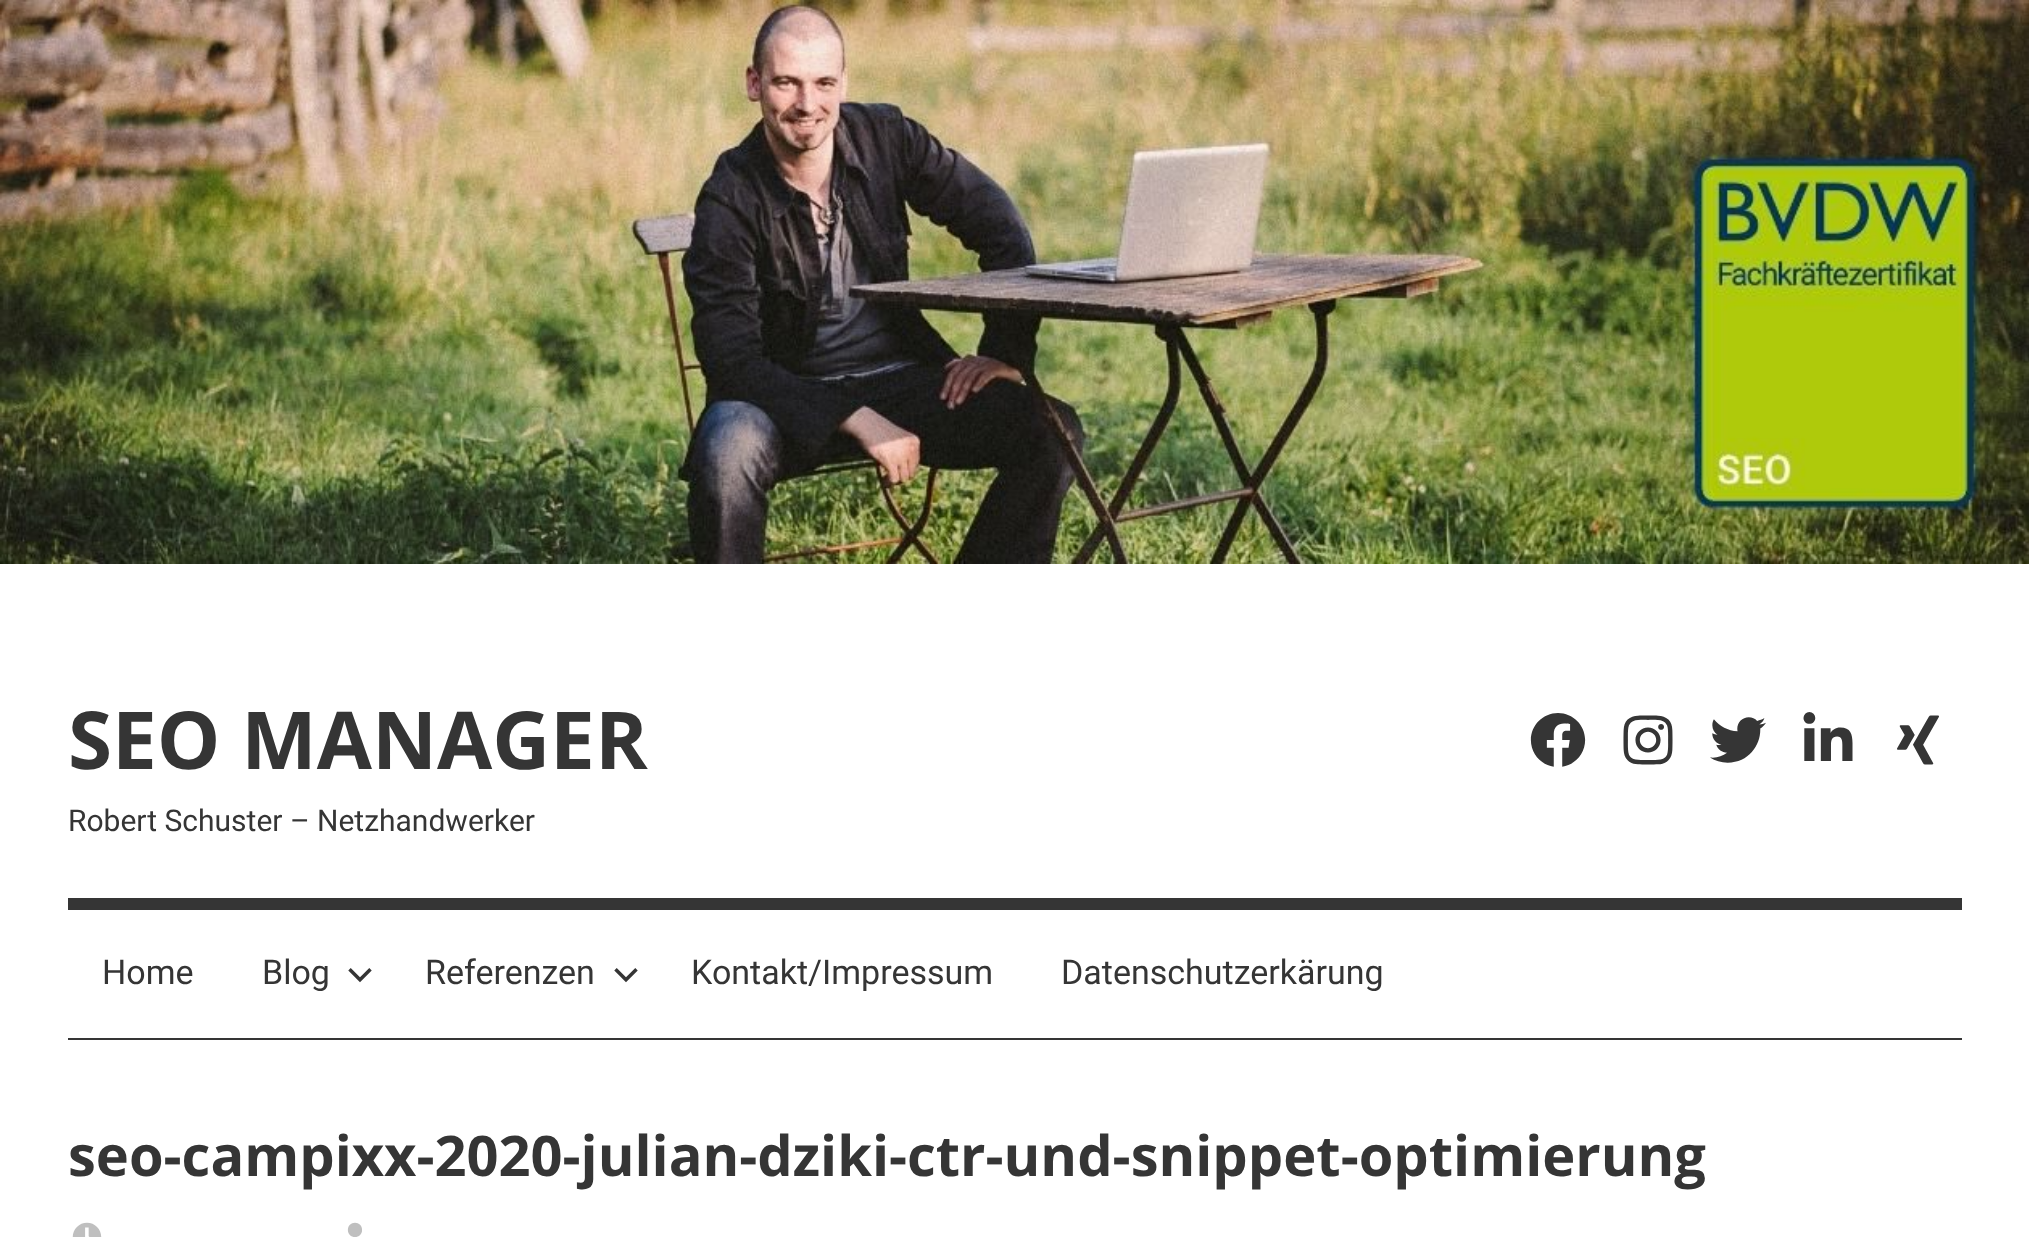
async function draw(canvas) {
  canvas.width = 2029;
  canvas.height = 1237;
  const ctx = canvas.getContext('2d');
  ctx.miterLimit = 4;
  ctx.fontKerning = 'normal';
  function label(s, x, y, font, color) {
    ctx.font = font;
    ctx.fillStyle = color;
    ctx.fillText(s, x, y);
  }
  function rect(x, y, w, h, color) {
    ctx.fillStyle = color;
    ctx.fillRect(x, y, w, h);
  }
  async function image(src, x, y, w, h) {
    const img = new Image();
    img.src = src;
    await img.decode();
    ctx.drawImage(img, x, y, w, h);
  }

  rect(0, 0, 2029, 1237, '#fff');
  await image('assets/img1.png', 0, 0, 2029, 564);
  label('SEO MANAGER', 68, 769, 'bold 80px Open Sans', '#353535');
  label('Robert Schuster – Netzhandwerker', 68, 831, '30px Roboto', '#353535');
  await image('assets/img2.png', 1530, 713, 56, 54);
  await image('assets/img3.png', 1623, 715, 50, 50);
  await image('assets/img4.png', 1710, 717, 56, 46);
  await image('assets/img5.png', 1803, 712, 50, 49);
  await image('assets/img6.png', 1897, 715, 42, 50);
  rect(68, 898, 1894, 12, '#353535');
  rect(68, 1038, 1894, 2, '#353535');
  label('Home', 102, 984, '34px Roboto', '#353535');
  label('Blog', 262, 984, '34px Roboto', '#353535');
  await image('assets/img7.png', 348, 968, 24, 15);
  label('Referenzen', 425, 984, '34px Roboto', '#353535');
  await image('assets/img7.png', 614, 968, 24, 15);
  label('Kontakt/Impressum', 691, 984, '34px Roboto', '#353535');
  label('Datenschutzerkärung', 1061, 984, '34px Roboto', '#353535');
  label('seo-campixx-2020-julian-dziki-ctr-und-snippet-optimierung', 68, 1176, 'bold 56px Open Sans', '#353535');
  await image('assets/img8.png', 72, 1222, 30, 15);
  await image('assets/img9.png', 347, 1222, 15, 15);
}

draw(document.querySelector('canvas'));
